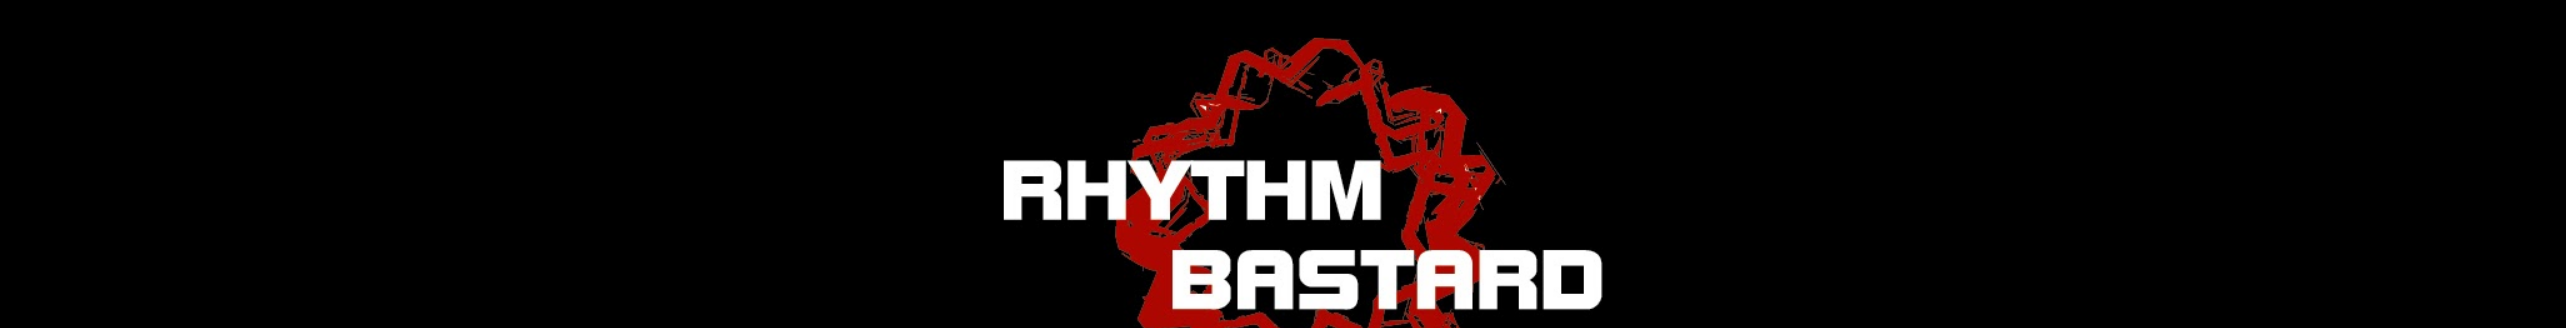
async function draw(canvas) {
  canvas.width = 2566;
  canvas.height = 328;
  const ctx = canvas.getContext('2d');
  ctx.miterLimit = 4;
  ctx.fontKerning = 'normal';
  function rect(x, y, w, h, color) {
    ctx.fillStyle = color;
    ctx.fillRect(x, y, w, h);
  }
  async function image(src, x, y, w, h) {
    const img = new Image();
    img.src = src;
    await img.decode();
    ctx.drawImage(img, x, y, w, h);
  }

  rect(0, 0, 2566, 328, '#000');
  await image('assets/img1.png', 1003, 37, 600, 291);
}

draw(document.querySelector('canvas'));
